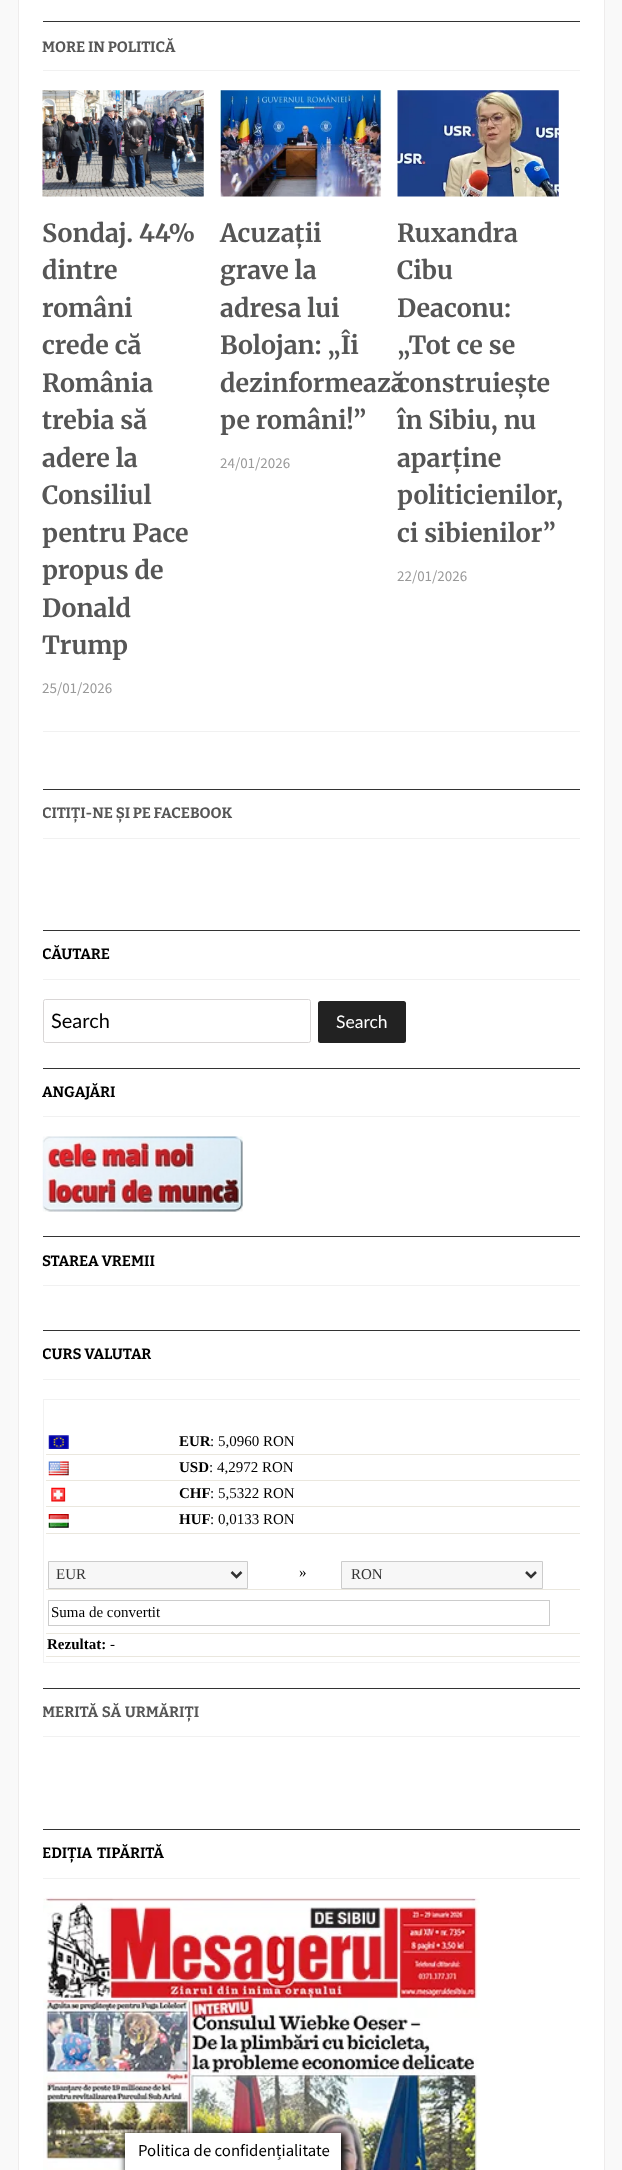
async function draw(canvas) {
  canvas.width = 622;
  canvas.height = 2170;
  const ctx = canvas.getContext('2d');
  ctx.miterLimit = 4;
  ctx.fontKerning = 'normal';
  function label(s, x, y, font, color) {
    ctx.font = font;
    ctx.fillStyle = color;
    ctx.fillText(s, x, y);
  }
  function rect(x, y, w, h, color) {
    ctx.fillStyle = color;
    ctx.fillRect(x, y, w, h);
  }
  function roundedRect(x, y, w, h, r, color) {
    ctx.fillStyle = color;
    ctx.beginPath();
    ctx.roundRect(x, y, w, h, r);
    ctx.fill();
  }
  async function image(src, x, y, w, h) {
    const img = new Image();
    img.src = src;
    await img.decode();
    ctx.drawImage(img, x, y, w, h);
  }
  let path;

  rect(0, 0, 622, 2170, '#f9f9f9');
  rect(19, 0, 585, 2170, '#fff');
  rect(604, 0, 1, 2170, '#eeecec');
  rect(18, 0, 1, 2170, '#eeecec');
  rect(43, 731, 537, 1, '#f1f1f1');
  rect(43, 21, 537, 1, '#333');
  rect(43, 70, 537, 1, '#f1f1f1');
  label('MORE IN POLITICĂ', 42, 52, 'bold 15px Bitter', '#565656');
  await image('assets/img1.png', 42, 90, 162, 107);
  label('Sondaj. 44%', 42, 242, 'bold 25px Merriweather', '#565656');
  label('dintre', 42, 279, 'bold 25px Merriweather', '#565656');
  label('români', 42, 317, 'bold 25px Merriweather', '#565656');
  label('crede că', 42, 354, 'bold 25px Merriweather', '#565656');
  label('România', 42, 392, 'bold 25px Merriweather', '#565656');
  label('trebia să', 42, 429, 'bold 25px Merriweather', '#565656');
  label('adere la', 42, 467, 'bold 25px Merriweather', '#565656');
  label('Consiliul', 42, 504, 'bold 25px Merriweather', '#565656');
  label('pentru Pace', 42, 542, 'bold 25px Merriweather', '#565656');
  label('propus de', 42, 579, 'bold 25px Merriweather', '#565656');
  label('Donald', 42, 617, 'bold 25px Merriweather', '#565656');
  label('Trump', 42, 654, 'bold 25px Merriweather', '#565656');
  label('25/01/2026', 42, 693, '15px Source Sans Pro', '#999');
  await image('assets/img2.png', 220, 90, 162, 107);
  label('Acuzații', 220, 242, 'bold 25px Merriweather', '#565656');
  label('grave la', 220, 279, 'bold 25px Merriweather', '#565656');
  label('adresa lui', 220, 317, 'bold 25px Merriweather', '#565656');
  label('Bolojan: „Îi', 220, 354, 'bold 25px Merriweather', '#565656');
  label('dezinformează', 220, 392, 'bold 25px Merriweather', '#565656');
  label('pe români!”', 220, 429, 'bold 25px Merriweather', '#565656');
  label('24/01/2026', 220, 468, '15px Source Sans Pro', '#999');
  await image('assets/img3.png', 397, 90, 162, 107);
  label('Ruxandra', 397, 242, 'bold 25px Merriweather', '#565656');
  label('Cibu', 397, 279, 'bold 25px Merriweather', '#565656');
  label('Deaconu:', 397, 317, 'bold 25px Merriweather', '#565656');
  label('„Tot ce se', 397, 354, 'bold 25px Merriweather', '#565656');
  label('construiește', 397, 392, 'bold 25px Merriweather', '#565656');
  label('în Sibiu, nu', 397, 429, 'bold 25px Merriweather', '#565656');
  label('aparține', 397, 467, 'bold 25px Merriweather', '#565656');
  label('politicienilor,', 397, 504, 'bold 25px Merriweather', '#565656');
  label('ci sibienilor”', 397, 542, 'bold 25px Merriweather', '#565656');
  label('22/01/2026', 397, 581, '15px Source Sans Pro', '#999');
  rect(43, 789, 537, 1, '#333');
  rect(43, 838, 537, 1, '#f1f1f1');
  ctx.save();
  ctx.beginPath();
  ctx.rect(43, 789, 537, 116);
  ctx.clip();
  label('CITIȚI-NE ȘI PE FACEBOOK', 42, 818, 'bold 15px Bitter', '#565656');
  ctx.restore();
  rect(43, 930, 537, 1, '#333');
  rect(43, 979, 537, 1, '#f1f1f1');
  ctx.save();
  ctx.beginPath();
  ctx.rect(43, 770, 537, 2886);
  ctx.clip();
  label('CĂUTARE', 42, 959, 'bold 15px Bitter', '#000');
  ctx.restore();
  ctx.beginPath();
  ctx.roundRect(43.5, 999.5, 267, 43, 2);
  ctx.strokeStyle = '#d9d6d6';
  ctx.stroke();
  label('Search', 51, 1028, '20px Lato', '#000');
  roundedRect(318, 1001, 88, 42, 2.5, '#222');
  label('Search', 336, 1028, '17.5px Lato', '#fff');
  rect(43, 1068, 537, 1, '#333');
  rect(43, 1116, 537, 1, '#f1f1f1');
  label('ANGAJĂRI', 42, 1097, 'bold 15px Bitter', '#000');
  await image('assets/img4.png', 42, 1136, 201, 76);
  rect(43, 1236, 537, 1, '#333');
  rect(43, 1285, 537, 1, '#f1f1f1');
  label('STAREA VREMII', 42, 1266, 'bold 15px Bitter', '#000');
  rect(43, 1330, 537, 1, '#333');
  rect(43, 1379, 537, 1, '#f1f1f1');
  ctx.save();
  ctx.beginPath();
  ctx.rect(43, 770, 537, 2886);
  ctx.clip();
  label('CURS VALUTAR', 42, 1359, 'bold 15px Bitter', '#000');
  ctx.strokeStyle = '#f2f2f2';
  ctx.strokeRect(43.5, 1399.5, 544, 263);
  ctx.restore();
  rect(46, 1454, 534, 1, '#eae7de');
  await image('assets/img5.png', 48, 1435, 21, 14);
  label('EUR', 179, 1446, 'bold 15px Liberation Serif', '#000');
  label(': 5,0960 RON', 210, 1446, '15px Liberation Serif', '#000');
  rect(46, 1480, 534, 1, '#eae7de');
  await image('assets/img6.png', 48, 1461, 21, 15);
  label('USD', 179, 1472, 'bold 15px Liberation Serif', '#000');
  label(': 4,2972 RON', 209, 1472, '15px Liberation Serif', '#000');
  rect(46, 1506, 534, 1, '#eae7de');
  await image('assets/img7.png', 51, 1487, 15, 15);
  label('CHF', 179, 1498, 'bold 15px Liberation Serif', '#000');
  label(': 5,5322 RON', 210, 1498, '15px Liberation Serif', '#000');
  rect(46, 1533, 534, 1, '#eae7de');
  await image('assets/img8.png', 48, 1514, 21, 14);
  label('HUF', 179, 1524, 'bold 15px Liberation Serif', '#000');
  label(': 0,0133 RON', 210, 1524, '15px Liberation Serif', '#000');
  rect(46, 1589, 534, 1, '#eae7de');
  ctx.fillStyle = '#f7f7f7';
  ctx.beginPath();
  ctx.rect(48.5, 1561.5, 199, 27);
  ctx.fill();
  ctx.strokeStyle = '#ccc';
  ctx.stroke();
  path = new Path2D('M231.5 1572L236.5 1577L241.5 1572');
  ctx.strokeStyle = '#333';
  ctx.lineWidth = 2.5;
  ctx.stroke(path);
  label('EUR', 56, 1579, '15px Liberation Serif', '#333');
  label('»', 299, 1577, '15px Liberation Serif', '#000');
  ctx.fillStyle = '#f7f7f7';
  ctx.beginPath();
  ctx.rect(341.5, 1561.5, 201, 27);
  ctx.fill();
  ctx.strokeStyle = '#ccc';
  ctx.lineWidth = 1;
  ctx.stroke();
  path = new Path2D('M526 1572L531 1577L536 1572');
  ctx.strokeStyle = '#333';
  ctx.lineWidth = 2.5;
  ctx.stroke(path);
  label('RON', 351, 1579, '15px Liberation Serif', '#333');
  rect(46, 1633, 534, 1, '#eae7de');
  ctx.strokeStyle = '#ccc';
  ctx.lineWidth = 1;
  ctx.strokeRect(48.5, 1600.5, 501, 25);
  label('Suma de convertit', 51, 1617, '15px Liberation Serif', '#000');
  rect(46, 1656, 534, 1, '#eae7de');
  label('Rezultat:', 47, 1649, 'bold 15px Liberation Serif', '#000');
  label('-', 110, 1649, '15px Liberation Serif', '#000');
  rect(43, 1688, 537, 1, '#333');
  rect(43, 1736, 537, 1, '#f1f1f1');
  ctx.save();
  ctx.beginPath();
  ctx.rect(43, 1688, 537, 116);
  ctx.clip();
  ctx.wordSpacing = '1px';
  label('MERITĂ SĂ URMĂRIȚI', 42, 1717, 'bold 15px Bitter', '#565656');
  ctx.restore();
  rect(43, 1829, 537, 1, '#333');
  rect(43, 1878, 537, 1, '#f1f1f1');
  ctx.save();
  ctx.beginPath();
  ctx.rect(43, 770, 537, 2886);
  ctx.clip();
  ctx.wordSpacing = '2px';
  label('EDIȚIA TIPĂRITĂ', 42, 1858, 'bold 15px Bitter', '#000');
  ctx.restore();
  await image('assets/img9.png', 43, 1897, 437, 273);
  ctx.fillStyle = '#161616';
  ctx.filter = 'blur(3px)';
  ctx.beginPath();
  ctx.rect(125, 2133, 221, 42);
  ctx.fill();
  ctx.filter = 'none';
  rect(125, 2133, 216, 37, '#fff');
  label('Politica de confidențialitate', 138, 2156, '16.75px Source Sans Pro', '#000');
}

draw(document.querySelector('canvas'));
